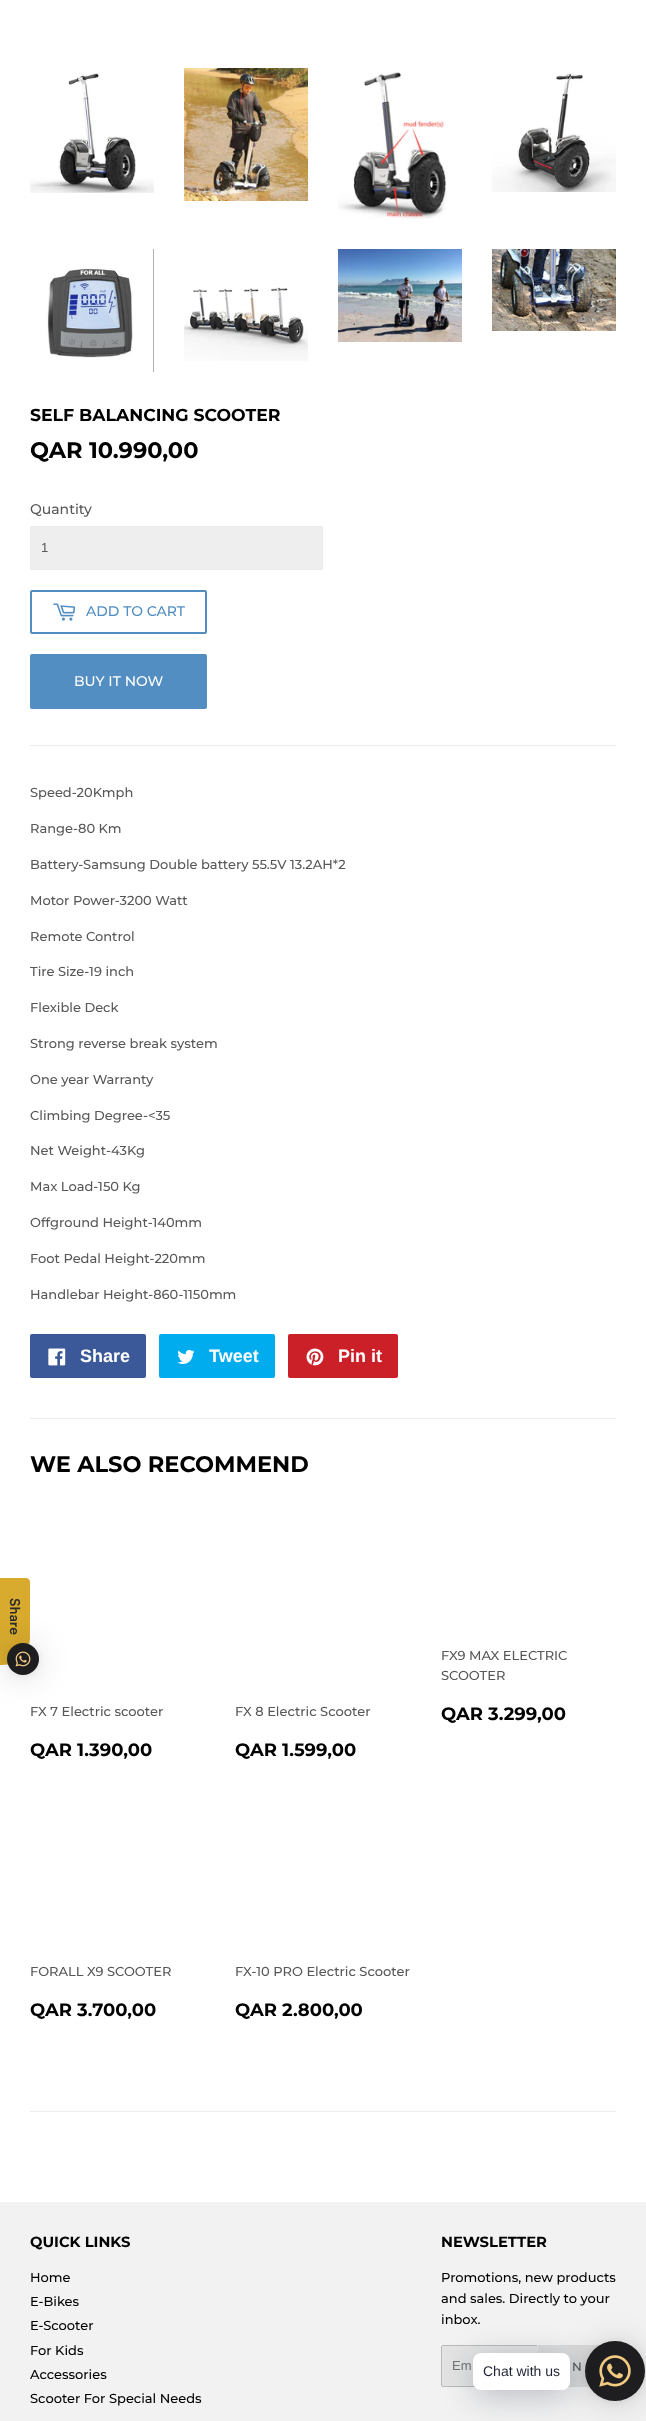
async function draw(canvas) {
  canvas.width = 646;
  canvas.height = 2421;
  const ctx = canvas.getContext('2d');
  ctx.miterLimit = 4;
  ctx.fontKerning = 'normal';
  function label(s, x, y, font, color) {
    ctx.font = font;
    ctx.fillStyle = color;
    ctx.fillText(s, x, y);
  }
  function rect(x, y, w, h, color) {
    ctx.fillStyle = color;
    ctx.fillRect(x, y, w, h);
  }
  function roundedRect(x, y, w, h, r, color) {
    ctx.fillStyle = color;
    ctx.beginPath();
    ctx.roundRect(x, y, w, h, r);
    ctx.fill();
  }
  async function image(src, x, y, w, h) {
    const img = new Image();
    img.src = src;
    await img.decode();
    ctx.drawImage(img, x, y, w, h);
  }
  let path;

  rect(0, 0, 646, 2421, '#fff');
  ctx.fillStyle = '#d8ab2e';
  path = new Path2D('M0 1665V1578H26C28 1578 30 1580 30 1582V1637C30 1652 17 1665 2 1665Z');
  ctx.fill(path);
  ctx.fillStyle = '#00000029';
  ctx.filter = 'blur(16px)';
  ctx.beginPath();
  ctx.roundRect(7, 1645, 32, 32, 16);
  ctx.fill();
  ctx.filter = 'none';
  ctx.fillStyle = '#0000000f';
  ctx.filter = 'blur(3px)';
  ctx.beginPath();
  ctx.roundRect(7, 1644, 32, 32, 16);
  ctx.fill();
  ctx.filter = 'none';
  ctx.fillStyle = '#1e1e20';
  ctx.beginPath();
  ctx.arc(23, 1659, 16, 0, 2 * Math.PI);
  ctx.fill();
  await image('assets/img1.png', 15, 1651, 16, 16);
  ctx.font = '500 14px Circular';
  ctx.fillStyle = '#2a2c2b';
  ctx.save();
  ctx.translate(10, 1598);
  ctx.rotate(90 * Math.PI / 180);
  ctx.fillText('Share', 0, 0);
  ctx.restore();
  await image('assets/img2.png', 30, 73, 124, 120);
  await image('assets/img3.png', 184, 68, 124, 133);
  await image('assets/img4.png', 338, 72, 109, 147);
  await image('assets/img5.png', 492, 73, 124, 119);
  await image('assets/img6.png', 46, 249, 108, 123);
  await image('assets/img7.png', 184, 287, 124, 74);
  await image('assets/img8.png', 338, 249, 124, 93);
  await image('assets/img9.png', 492, 249, 124, 82);
  label('SELF BALANCING SCOOTER', 30, 421, 'bold 17.3px Montserrat', '#000');
  label('QAR 10.990,00', 30, 458, 'bold 22.5px Montserrat', '#000');
  label('Quantity', 30, 514, '500 14px Montserrat', '#585858');
  ctx.fillStyle = '#eee';
  ctx.beginPath();
  ctx.roundRect(30.5, 526.5, 292, 43, 1.5);
  ctx.fill();
  ctx.strokeStyle = '#ececec';
  ctx.stroke();
  label('1', 41, 552, '13px Liberation Sans', '#585858');
  ctx.beginPath();
  ctx.roundRect(31, 591, 175, 42, 1);
  ctx.strokeStyle = '#528ec1';
  ctx.lineWidth = 2;
  ctx.stroke();
  await image('assets/img10.png', 53, 603, 23, 18);
  label('ADD TO CART', 86, 616, '500 14px Montserrat', '#528ec1');
  roundedRect(30, 654, 177, 55, 2, '#528ec1');
  label('BUY IT NOW', 74, 686, '500 14px Montserrat', '#fff');
  rect(30, 745, 586, 1, '#ececec');
  label('Speed-20Kmph', 30, 797, '500 13px Montserrat', '#585858');
  label('Range-80 Km', 30, 833, '500 13px Montserrat', '#585858');
  label('Battery-Samsung Double battery 55.5V 13.2AH*2', 30, 869, '500 13px Montserrat', '#585858');
  label('Motor Power-3200 Watt', 30, 905, '500 13px Montserrat', '#585858');
  label('Remote Control', 30, 941, '500 13px Montserrat', '#585858');
  label('Tire Size-19 inch', 30, 976, '500 13px Montserrat', '#585858');
  label('Flexible Deck', 30, 1012, '500 13px Montserrat', '#585858');
  label('Strong reverse break system', 30, 1048, '500 13px Montserrat', '#585858');
  label('One year Warranty', 30, 1084, '500 13px Montserrat', '#585858');
  label('Climbing Degree-<35', 30, 1120, '500 13px Montserrat', '#585858');
  label('Net Weight-43Kg', 30, 1155, '500 13px Montserrat', '#585858');
  label('Max Load-150 Kg', 30, 1191, '500 13px Montserrat', '#585858');
  label('Offground Height-140mm', 30, 1227, '500 13px Montserrat', '#585858');
  label('Foot Pedal Height-220mm', 30, 1263, '500 13px Montserrat', '#585858');
  label('Handlebar Height-860-1150mm', 30, 1299, '500 13px Montserrat', '#585858');
  roundedRect(30, 1334, 116, 44, 2, '#3b5998');
  await image('assets/img11.png', 48, 1348, 18, 18);
  label('Share', 80, 1362, 'bold 18px Liberation Sans', '#fff');
  roundedRect(159, 1334, 116, 44, 2, '#00aced');
  await image('assets/img12.png', 177, 1349, 18, 15);
  label('Tweet', 209, 1362, 'bold 18px Liberation Sans', '#fff');
  roundedRect(288, 1334, 110, 44, 2, '#cb2027');
  await image('assets/img13.png', 306, 1348, 18, 18);
  label('Pin it', 338, 1362, 'bold 18px Liberation Sans', '#fff');
  rect(30, 1418, 586, 1, '#ececec');
  label('WE ALSO RECOMMEND', 30, 1472, 'bold 22.5px Montserrat', '#000');
  label('FX9 MAX ELECTRIC', 441, 1660, '500 13px Montserrat', '#585858');
  label('SCOOTER', 441, 1680, '500 13px Montserrat', '#585858');
  label('QAR 3.299,00', 441, 1720, 'bold 18px Montserrat', '#000');
  label('FX 7 Electric scooter', 30, 1716, '500 13px Montserrat', '#585858');
  label('QAR 1.390,00', 30, 1756, 'bold 18px Montserrat', '#000');
  label('FX 8 Electric Scooter', 235, 1716, '500 13px Montserrat', '#585858');
  label('QAR 1.599,00', 235, 1756, 'bold 18px Montserrat', '#000');
  label('FORALL X9 SCOOTER', 30, 1976, '500 13px Montserrat', '#585858');
  label('QAR 3.700,00', 30, 2016, 'bold 18px Montserrat', '#000');
  label('FX-10 PRO Electric Scooter', 235, 1976, '500 13px Montserrat', '#585858');
  label('QAR 2.800,00', 235, 2016, 'bold 18px Montserrat', '#000');
  rect(30, 2111, 586, 1, '#ececec');
  rect(0, 2202, 646, 219, '#f2f2f2');
  label('QUICK LINKS', 30, 2247, 'bold 14.75px Montserrat', '#000');
  label('Home', 30, 2282, '500 13px Montserrat', '#000');
  label('E-Bikes', 30, 2306, '500 13px Montserrat', '#000');
  label('E-Scooter', 30, 2330, '500 13px Montserrat', '#000');
  label('For Kids', 30, 2355, '500 13px Montserrat', '#000');
  label('Accessories', 30, 2379, '500 13px Montserrat', '#000');
  label('Scooter For Special Needs', 30, 2403, '500 13px Montserrat', '#000');
  label('NEWSLETTER', 441, 2247, 'bold 14.75px Montserrat', '#000');
  label('Promotions, new products', 441, 2282, '500 13px Montserrat', '#000');
  label('and sales. Directly to your', 441, 2303, '500 13px Montserrat', '#000');
  label('inbox.', 441, 2324, '500 13px Montserrat', '#000');
  roundedRect(441, 2345, 97, 42, 2, '#e3e3e3');
  rect(442, 2345, 95, 1, '#b9b9b9');
  rect(442, 2386, 33, 1, '#b9b9b9');
  rect(441, 2346, 1, 40, '#b9b9b9');
  label('Em', 452, 2370, '13px Liberation Sans', '#757575');
  rect(538, 2345, 62, 42, '#dcdcdc');
  label('N', 572, 2371, '500 12px Montserrat', '#585858');
  ctx.fillStyle = '#00000029';
  ctx.filter = 'blur(16px)';
  ctx.beginPath();
  ctx.roundRect(585, 2343, 60, 60, 30);
  ctx.fill();
  ctx.filter = 'none';
  ctx.fillStyle = '#0000000f';
  ctx.filter = 'blur(3px)';
  ctx.beginPath();
  ctx.roundRect(585, 2342, 60, 60, 30);
  ctx.fill();
  ctx.filter = 'none';
  ctx.fillStyle = '#1e1e20';
  ctx.beginPath();
  ctx.arc(615, 2371, 30, 0, 2 * Math.PI);
  ctx.fill();
  ctx.fillStyle = '#00122e3d';
  ctx.filter = 'blur(16px)';
  ctx.beginPath();
  ctx.roundRect(473, 2359, 97, 37, 8);
  ctx.fill();
  ctx.filter = 'none';
  roundedRect(473, 2353, 97, 37, 8, '#fff');
  label('Chat with us', 483, 2376, '14px Liberation Sans', '#1e2433');
  await image('assets/img14.png', 599, 2355, 32, 32);
}

draw(document.querySelector('canvas'));
